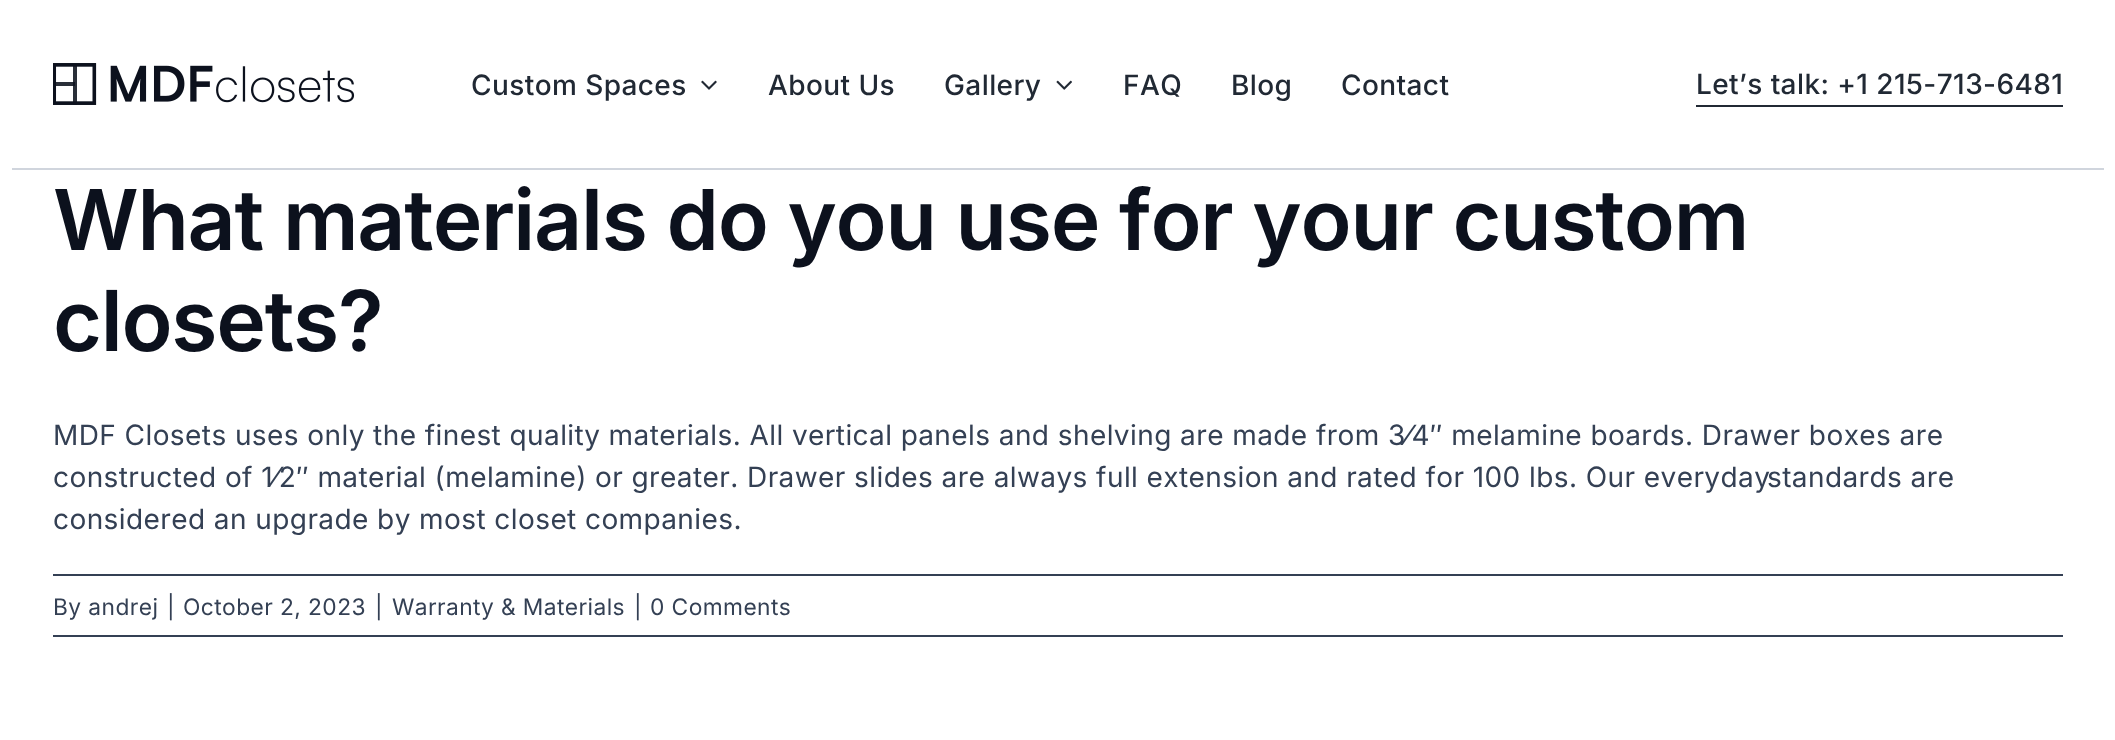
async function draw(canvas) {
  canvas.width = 2115;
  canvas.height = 740;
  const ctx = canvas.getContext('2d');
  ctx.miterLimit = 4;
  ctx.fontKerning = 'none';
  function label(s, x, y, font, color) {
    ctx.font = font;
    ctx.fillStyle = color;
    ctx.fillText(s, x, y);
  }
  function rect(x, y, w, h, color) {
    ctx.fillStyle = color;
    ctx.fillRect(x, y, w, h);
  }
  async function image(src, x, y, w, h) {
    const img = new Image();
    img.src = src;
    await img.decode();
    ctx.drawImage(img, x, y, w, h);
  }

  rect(0, 0, 2115, 740, '#fff');
  rect(12, 168, 2092, 2, '#d0d5dd');
  await image('assets/img1.png', 53, 63, 302, 42);
  ctx.letterSpacing = '0.42px';
  label('Custom Spaces', 471, 95, '500 28px Inter', '#212934');
  await image('assets/img2.png', 701, 80, 16, 10);
  label('About Us', 768, 95, '500 28px Inter', '#212934');
  label('Gallery', 944, 95, '500 28px Inter', '#212934');
  await image('assets/img3.png', 1056, 80, 16, 10);
  label('FAQ', 1123, 95, '500 28px Inter', '#212934');
  label('Blog', 1231, 95, '500 28px Inter', '#212934');
  label('Contact', 1341, 95, '500 28px Inter', '#212934');
  rect(1696, 105, 367, 2, '#212934');
  label('Let’s talk: +1 215-713-6481', 1696, 94, '500 28px Inter', '#212934');
  ctx.letterSpacing = '-1.25px';
  label('What materials do you use for your custom', 53, 250, '600 84px Inter', '#0c111d');
  label('closets?', 53, 351, '600 84px Inter', '#0c111d');
  ctx.letterSpacing = '0.42px';
  label('MDF Closets uses only the finest quality materials. All vertical panels and shelving are made from 3⁄4″ melamine boards. Drawer boxes are', 53, 445, '28px Inter', '#344054');
  label('constructed of 1⁄2″ material (melamine) or greater. Drawer slides are always full extension and rated for 100 lbs. Our everyday', 53, 487, '28px Inter', '#344054');
  label('standards are', 1767, 487, '28px Inter', '#344054');
  label('considered an upgrade by most closet companies.', 53, 529, '28px Inter', '#344054');
  rect(53, 574, 2010, 2, '#344054');
  rect(53, 635, 2010, 2, '#344054');
  label('By andrej', 53, 615, '22.75px Inter', '#344054');
  label('|', 167, 615, '22.75px Inter', '#344054');
  label('October 2, 2023', 183, 615, '22.75px Inter', '#344054');
  label('|', 375, 615, '22.75px Inter', '#344054');
  label('Warranty & Materials', 392, 615, '22.75px Inter', '#344054');
  label('|', 634, 615, '22.75px Inter', '#344054');
  label('0 Comments', 650, 615, '22.75px Inter', '#344054');
}

draw(document.querySelector('canvas'));
